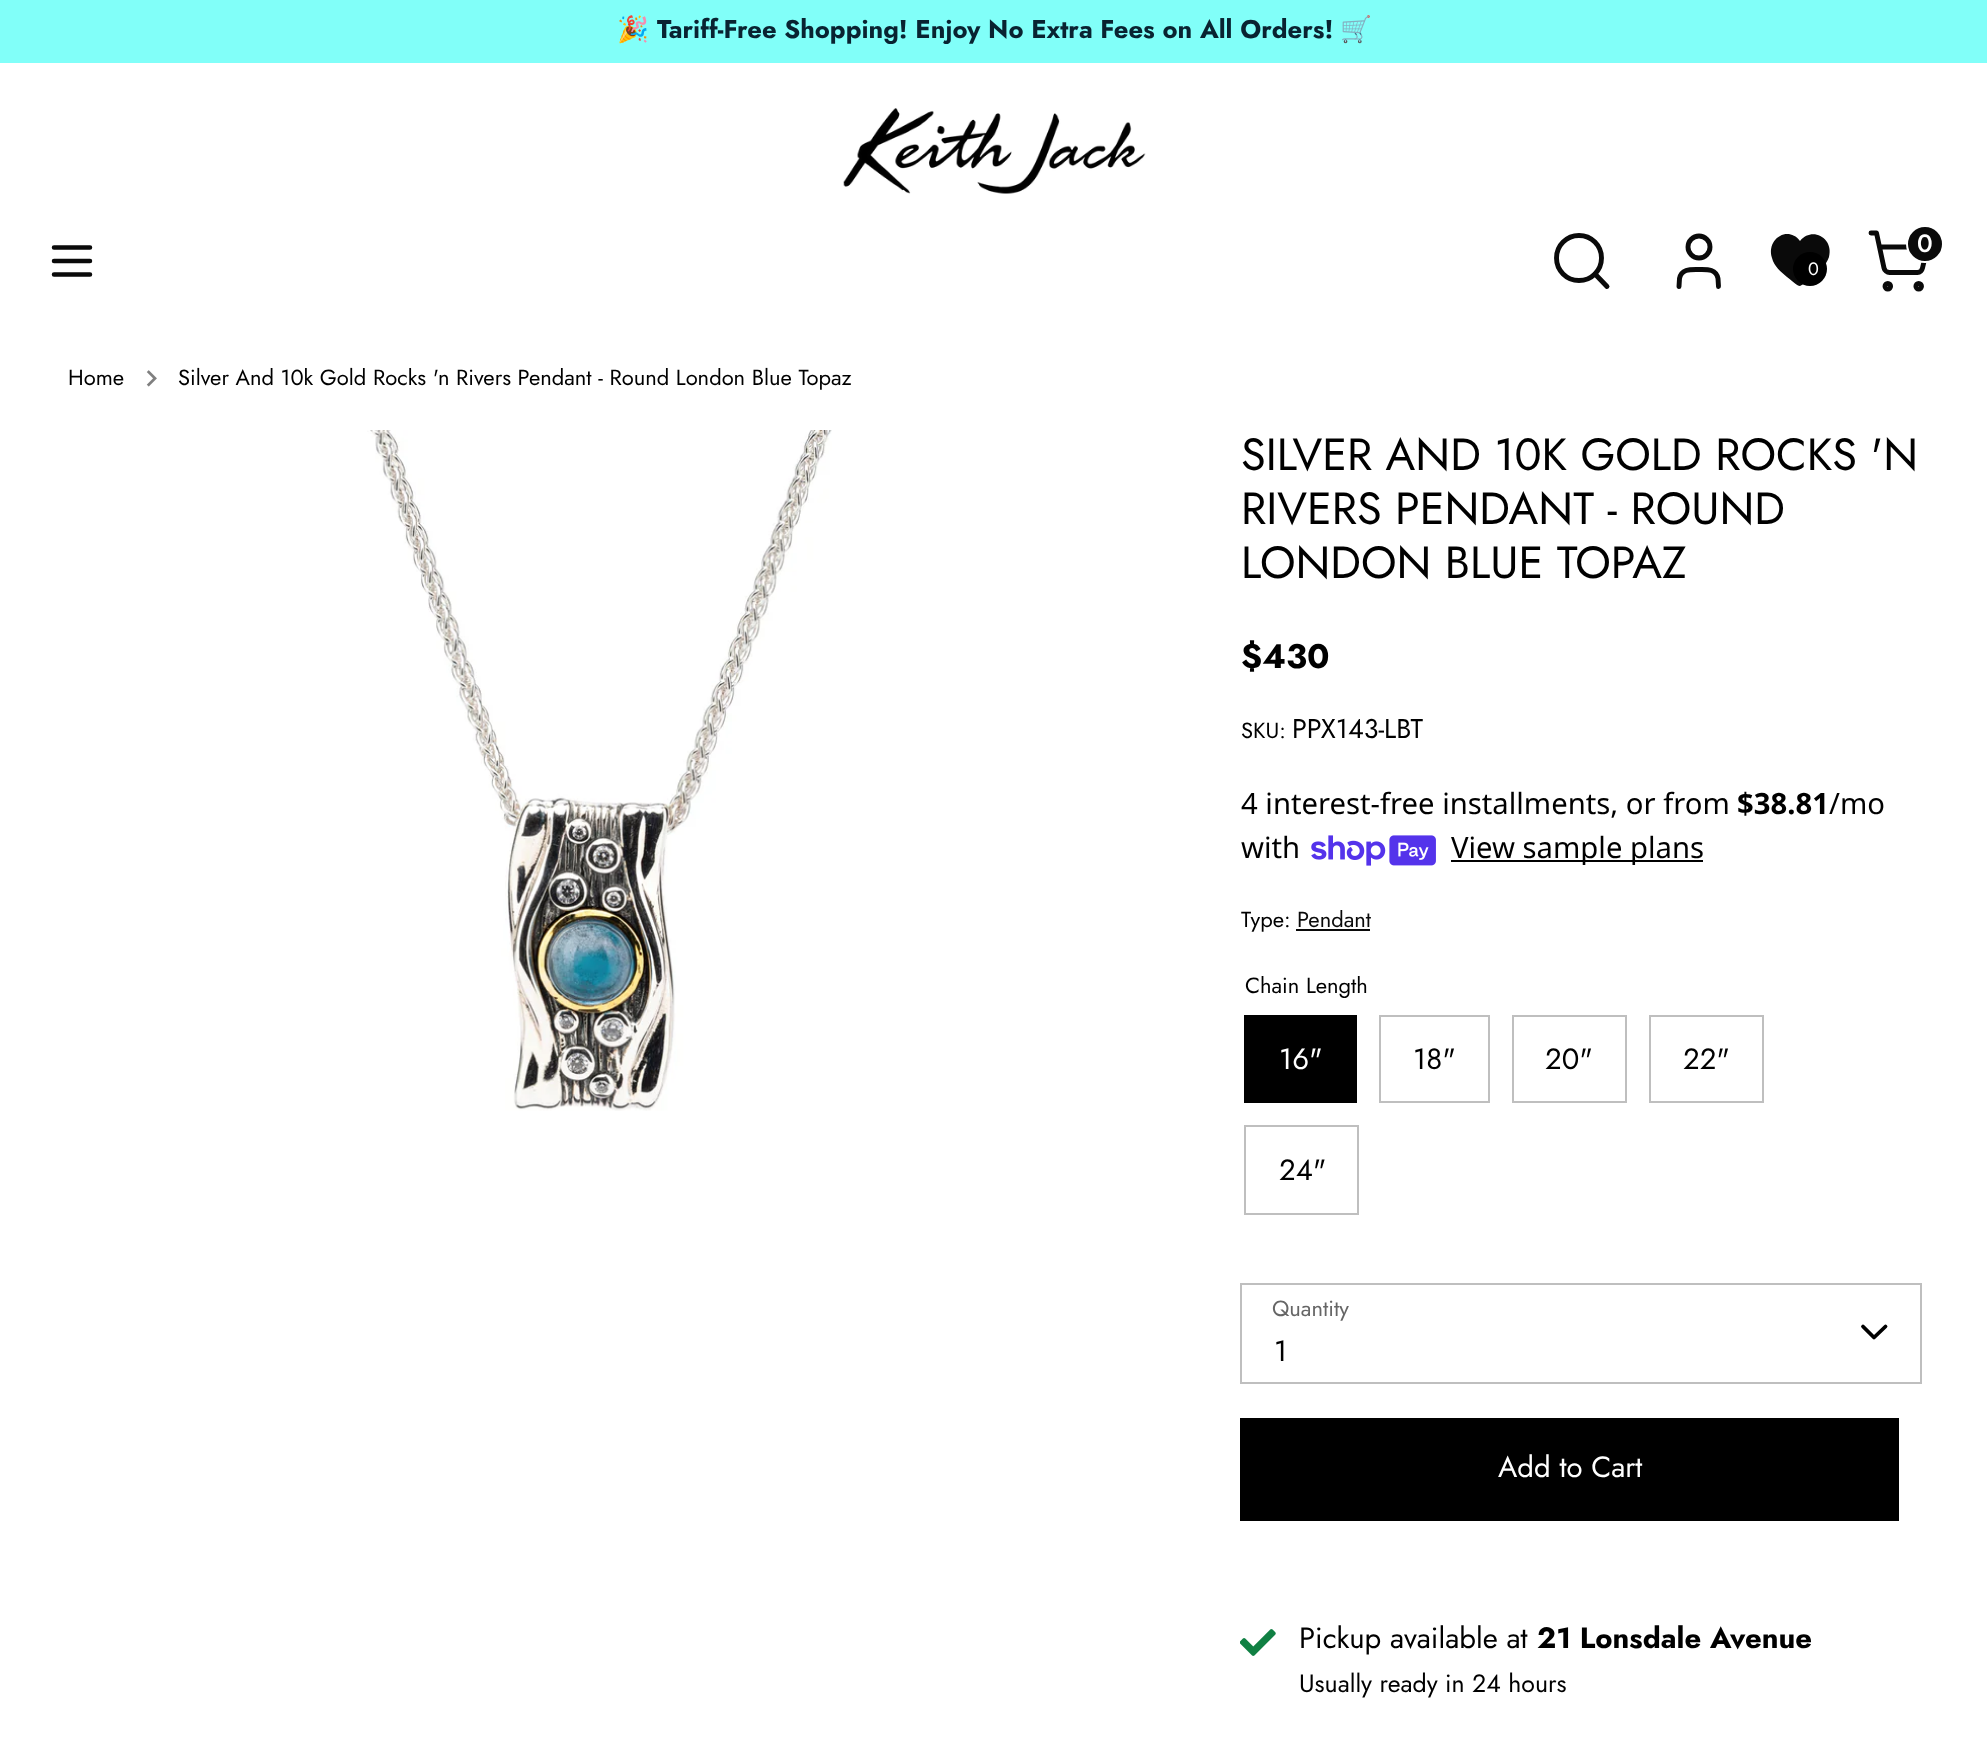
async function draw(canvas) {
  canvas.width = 1987;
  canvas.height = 1744;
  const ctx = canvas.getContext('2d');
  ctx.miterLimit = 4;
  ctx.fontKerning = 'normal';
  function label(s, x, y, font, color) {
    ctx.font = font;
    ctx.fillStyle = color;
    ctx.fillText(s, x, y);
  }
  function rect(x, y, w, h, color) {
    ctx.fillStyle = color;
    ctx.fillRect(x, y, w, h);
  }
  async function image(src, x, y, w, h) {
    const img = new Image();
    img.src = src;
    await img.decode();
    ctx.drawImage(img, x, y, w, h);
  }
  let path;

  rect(0, 0, 1987, 1744, '#fff');
  rect(0, 0, 1987, 63, '#81fff9');
  label('🎉', 617, 38, 'bold 25.6px Noto Color Emoji', '#092331');
  label('Tariff-Free Shopping! Enjoy No Extra Fees on All Orders!', 657, 38, 'bold 25.6px Jost', '#092331');
  label('🛒', 1340, 38, 'bold 25.6px Noto Color Emoji', '#092331');
  await image('assets/img1.png', 843, 108, 303, 86);
  path = new Path2D('M54 261H90M54 247.5H90M54 274.5H90');
  ctx.strokeStyle = '#0a0a0a';
  ctx.lineWidth = 4.5;
  ctx.lineCap = 'round';
  ctx.lineJoin = 'round';
  ctx.stroke(path);
  ctx.beginPath();
  ctx.arc(1579, 258, 22.5, 0, 2 * Math.PI);
  ctx.lineWidth = 4.9;
  ctx.stroke();
  path = new Path2D('M1607 286.5L1595 274');
  ctx.stroke(path);
  path = new Path2D('M1718.5 286.5L1718 278.5C1716 268.5 1706.5 269.5 1699 269.5C1691 269.5 1681.5 268.5 1679.5 278.5L1679 286.5');
  ctx.stroke(path);
  ctx.beginPath();
  ctx.arc(1699, 247, 11, 0, 2 * Math.PI);
  ctx.stroke();
  ctx.beginPath();
  ctx.arc(1887.8, 286.3, 2.8, 0, 2 * Math.PI);
  ctx.stroke();
  ctx.beginPath();
  ctx.arc(1918.7, 286.3, 2.8, 0, 2 * Math.PI);
  ctx.stroke();
  path = new Path2D('M1871 233H1876.5L1884 268C1884.5 270.5 1887 272.5 1889.5 272.5H1917.5C1920 272.5 1922 270.5 1922.5 268L1927.5 247H1879.5');
  ctx.stroke(path);
  ctx.fillStyle = '#0a0a0a';
  ctx.beginPath();
  ctx.arc(1925, 244, 18, 0, 2 * Math.PI);
  ctx.fill();
  ctx.strokeStyle = '#fff';
  ctx.lineWidth = 2;
  ctx.stroke();
  label('0', 1917, 252, '500 25px Jost', '#fff');
  ctx.fillStyle = '#0a0a0a';
  path = new Path2D('M1800 286C1797 286 1790 279 1787 277C1781 272 1774 266 1772 258C1766 239 1788 225 1800 241C1812 226 1834 238 1829 257C1826 265 1820 272 1813 277C1812 278 1803 285 1800 286Z');
  ctx.fill(path);
  ctx.fillStyle = '#000';
  ctx.beginPath();
  ctx.arc(1810, 269, 17, 0, 2 * Math.PI);
  ctx.fill();
  label('0', 1808, 275, '18px Jost', '#fff');
  label('Home', 68, 385, '21.95px Jost', '#000');
  await image('assets/img2.png', 146, 370, 11, 17);
  label('Silver And 10k Gold Rocks \'n Rivers Pendant - Round London Blue Topaz', 178, 385, '21.95px Jost', '#000');
  await image('assets/img3.png', 367, 430, 465, 681);
  label('SILVER AND 10K GOLD ROCKS \'N', 1241, 470, '45px Jost', '#000');
  label('RIVERS PENDANT - ROUND', 1241, 524, '45px Jost', '#000');
  label('LONDON BLUE TOPAZ', 1241, 578, '45px Jost', '#000');
  label('$430', 1241, 668, 'bold 34px Jost', '#000');
  label('SKU:', 1241, 738, '21.95px Jost', '#000');
  label('PPX143-LBT', 1292, 738, '27px Jost', '#000');
  label('4 interest-free installments, or from', 1241, 814, '29.25px Noto Sans', '#000');
  label('$38.81', 1737, 814, 'bold 29.25px Noto Sans', '#000');
  label('/mo', 1829, 814, '29.25px Noto Sans', '#000');
  label('with', 1241, 858, '29.25px Noto Sans', '#000');
  await image('assets/img4.png', 1311, 835, 125, 31);
  rect(1451, 860, 252, 2, '#000');
  label('View sample plans', 1451, 858, '29.25px Noto Sans', '#000');
  label('Type:', 1241, 927, '21.95px Jost', '#000');
  label('Pendant', 1297, 927, '21.95px Jost', '#0a0a0a');
  rect(1296, 929, 74, 2, '#0a0a0a');
  label('Chain Length', 1245, 993, '21.95px Jost', '#000');
  rect(1244, 1015, 113, 88, '#000');
  label('16"', 1279, 1069, '29.25px Jost', '#fff');
  ctx.strokeStyle = '#bfbfbf';
  ctx.lineJoin = 'miter';
  ctx.strokeRect(1380, 1016, 109, 86);
  label('18"', 1413, 1069, '29.25px Jost', '#000');
  ctx.strokeRect(1513, 1016, 113, 86);
  label('20"', 1545, 1069, '29.25px Jost', '#000');
  ctx.strokeRect(1650, 1016, 113, 86);
  label('22"', 1683, 1069, '29.25px Jost', '#000');
  ctx.strokeRect(1245, 1126, 113, 88);
  label('24"', 1279, 1180, '29.25px Jost', '#000');
  label('Quantity', 1272, 1316, '21.95px Jost', '#666');
  ctx.strokeRect(1241, 1284, 680, 99);
  path = new Path2D('M1863 1326.5L1874 1337.5L1885.5 1326.5');
  ctx.strokeStyle = '#000';
  ctx.lineWidth = 3.8;
  ctx.lineJoin = 'round';
  ctx.stroke(path);
  label('1', 1274, 1361, '29.25px Jost', '#000');
  ctx.lineWidth = 2;
  ctx.lineJoin = 'miter';
  ctx.strokeRect(1241, 1419, 657, 101);
  rect(1242, 1420, 655, 99, '#000');
  label('Add to Cart', 1498, 1477, '29.25px Jost', '#fff');
  await image('assets/img5.png', 1240, 1629, 36, 27);
  label('Pickup available at', 1299, 1648, '29.25px Jost', '#000');
  label('21 Lonsdale Avenue', 1537, 1648, 'bold 29.25px Jost', '#000');
  label('Usually ready in 24 hours', 1299, 1692, '24.9px Jost', '#000');
}

draw(document.querySelector('canvas'));
